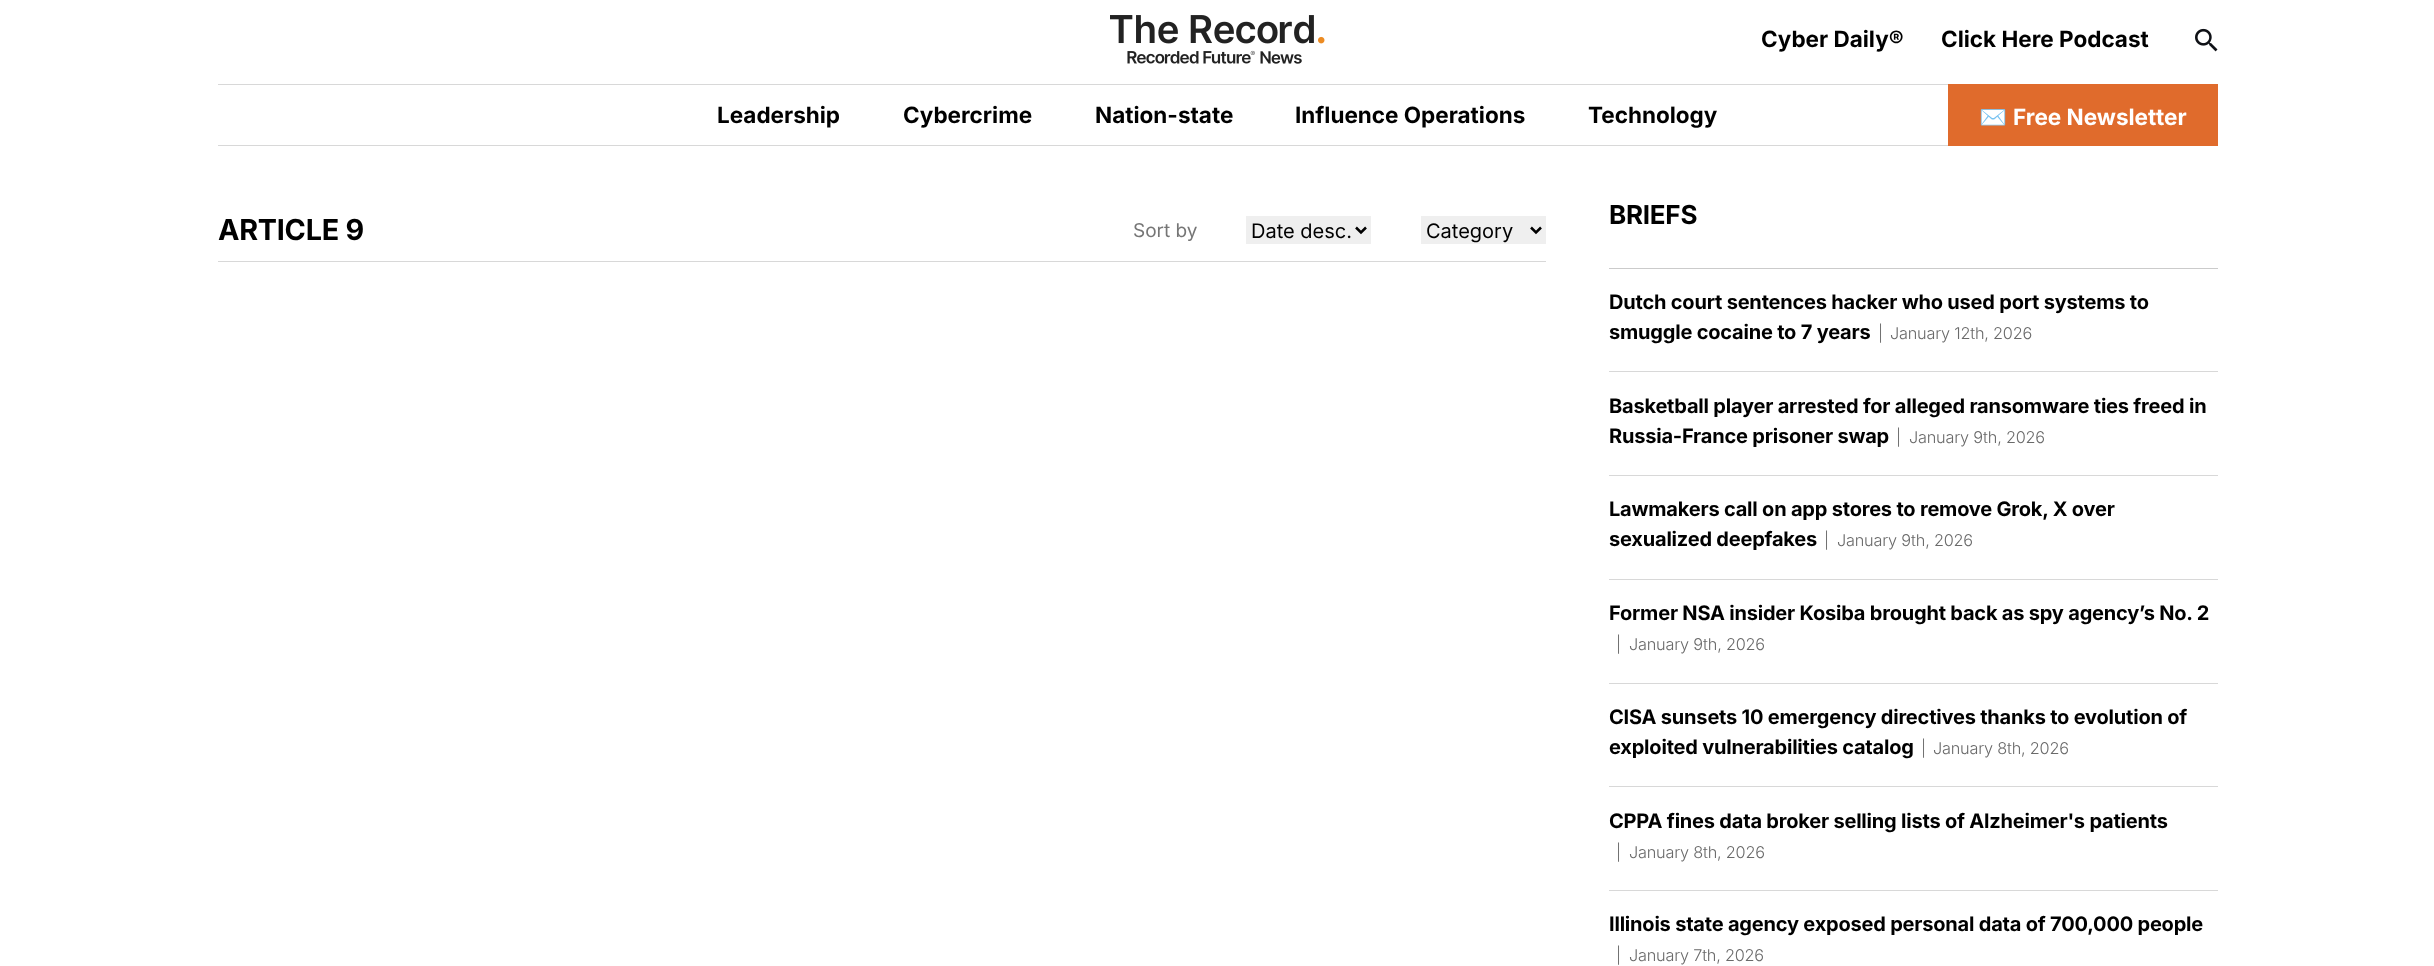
async function draw(canvas) {
  canvas.width = 2434;
  canvas.height = 966;
  const ctx = canvas.getContext('2d');
  ctx.miterLimit = 4;
  ctx.fontKerning = 'normal';
  function label(s, x, y, font, color) {
    ctx.font = font;
    ctx.fillStyle = color;
    ctx.fillText(s, x, y);
  }
  function rect(x, y, w, h, color) {
    ctx.fillStyle = color;
    ctx.fillRect(x, y, w, h);
  }
  async function image(src, x, y, w, h) {
    const img = new Image();
    img.src = src;
    await img.decode();
    ctx.drawImage(img, x, y, w, h);
  }
  let path;

  rect(0, 0, 2434, 966, '#fff');
  await image('assets/img1.png', 1110, 15, 215, 49);
  rect(218, 84, 1730, 1, '#d8d8d8');
  rect(218, 145, 1730, 1, '#d8d8d8');
  label('Cyber Daily®', 1761, 47, 'bold 22.5px Inter', '#000');
  label('Click Here Podcast', 1941, 47, 'bold 22.5px Inter', '#000');
  await image('assets/img2.png', 2195, 28, 23, 24);
  label('Leadership', 717, 123, 'bold 22.5px Inter', '#000');
  label('Cybercrime', 903, 123, 'bold 22.5px Inter', '#000');
  label('Nation-state', 1095, 123, 'bold 22.5px Inter', '#000');
  label('Influence Operations', 1295, 123, 'bold 22.5px Inter', '#000');
  label('Technology', 1588, 123, 'bold 22.5px Inter', '#000');
  rect(1948, 84, 270, 62, '#e06b2c');
  label('✉️', 1979, 125, 'bold 22.5px Noto Color Emoji', '#fff');
  label('Free Newsletter', 2013, 125, 'bold 22.5px Inter', '#fff');
  rect(218, 261, 1328, 1, '#d8d8d8');
  ctx.letterSpacing = '-0.25px';
  label('ARTICLE 9', 218, 240, 'bold 28.75px Inter', '#000');
  ctx.letterSpacing = '0px';
  label('Sort by', 1133, 237, '19px Inter', '#767676');
  rect(1246, 216, 125, 28, '#efefef');
  path = new Path2D('M1356 227.5L1361 232.5L1366 227.5');
  ctx.strokeStyle = '#000';
  ctx.lineWidth = 2.5;
  ctx.stroke(path);
  label('Date desc.', 1251, 238, '20px Inter', '#000');
  rect(1421, 216, 125, 28, '#efefef');
  path = new Path2D('M1531 227.5L1536 232.5L1541 227.5');
  ctx.stroke(path);
  label('Category', 1426, 238, '20px Inter', '#000');
  ctx.letterSpacing = '-0.25px';
  label('BRIEFS', 1609, 224, 'bold 26px Inter', '#000');
  rect(1609, 268, 609, 1, '#cbcbcb');
  rect(1609, 371, 609, 1, '#d8d8d8');
  ctx.letterSpacing = '-0.2px';
  label('Dutch court sentences hacker who used port systems to', 1609, 309, 'bold 20px Inter', '#000');
  label('smuggle cocaine to 7 years', 1609, 339, 'bold 20px Inter', '#000');
  label('|', 1878, 339, '300 16.25px Inter', '#6a6a6a');
  label('January 12th, 2026', 1890, 339, '300 16.25px Inter', '#6a6a6a');
  rect(1609, 475, 609, 1, '#d8d8d8');
  label('Basketball player arrested for alleged ransomware ties freed in', 1609, 413, 'bold 20px Inter', '#000');
  label('Russia-France prisoner swap', 1609, 443, 'bold 20px Inter', '#000');
  label('|', 1896, 443, '300 16.25px Inter', '#6a6a6a');
  label('January 9th, 2026', 1909, 443, '300 16.25px Inter', '#6a6a6a');
  rect(1609, 579, 609, 1, '#d8d8d8');
  label('Lawmakers call on app stores to remove Grok, X over', 1609, 516, 'bold 20px Inter', '#000');
  label('sexualized deepfakes', 1609, 546, 'bold 20px Inter', '#000');
  label('|', 1824, 546, '300 16.25px Inter', '#6a6a6a');
  label('January 9th, 2026', 1837, 546, '300 16.25px Inter', '#6a6a6a');
  rect(1609, 683, 609, 1, '#d8d8d8');
  label('Former NSA insider Kosiba brought back as spy agency’s No. 2', 1609, 620, 'bold 20px Inter', '#000');
  label('|', 1616, 650, '300 16.25px Inter', '#6a6a6a');
  label('January 9th, 2026', 1629, 650, '300 16.25px Inter', '#6a6a6a');
  rect(1609, 786, 609, 1, '#d8d8d8');
  label('CISA sunsets 10 emergency directives thanks to evolution of', 1609, 724, 'bold 20px Inter', '#000');
  label('exploited vulnerabilities catalog', 1609, 754, 'bold 20px Inter', '#000');
  label('|', 1921, 754, '300 16.25px Inter', '#6a6a6a');
  label('January 8th, 2026', 1933, 754, '300 16.25px Inter', '#6a6a6a');
  rect(1609, 890, 609, 1, '#d8d8d8');
  label('CPPA fines data broker selling lists of Alzheimer\'s patients', 1609, 828, 'bold 20px Inter', '#000');
  label('|', 1616, 858, '300 16.25px Inter', '#6a6a6a');
  label('January 8th, 2026', 1629, 858, '300 16.25px Inter', '#6a6a6a');
  label('Illinois state agency exposed personal data of 700,000 people', 1609, 931, 'bold 20px Inter', '#000');
  label('|', 1616, 961, '300 16.25px Inter', '#6a6a6a');
  label('January 7th, 2026', 1629, 961, '300 16.25px Inter', '#6a6a6a');
}

draw(document.querySelector('canvas'));
